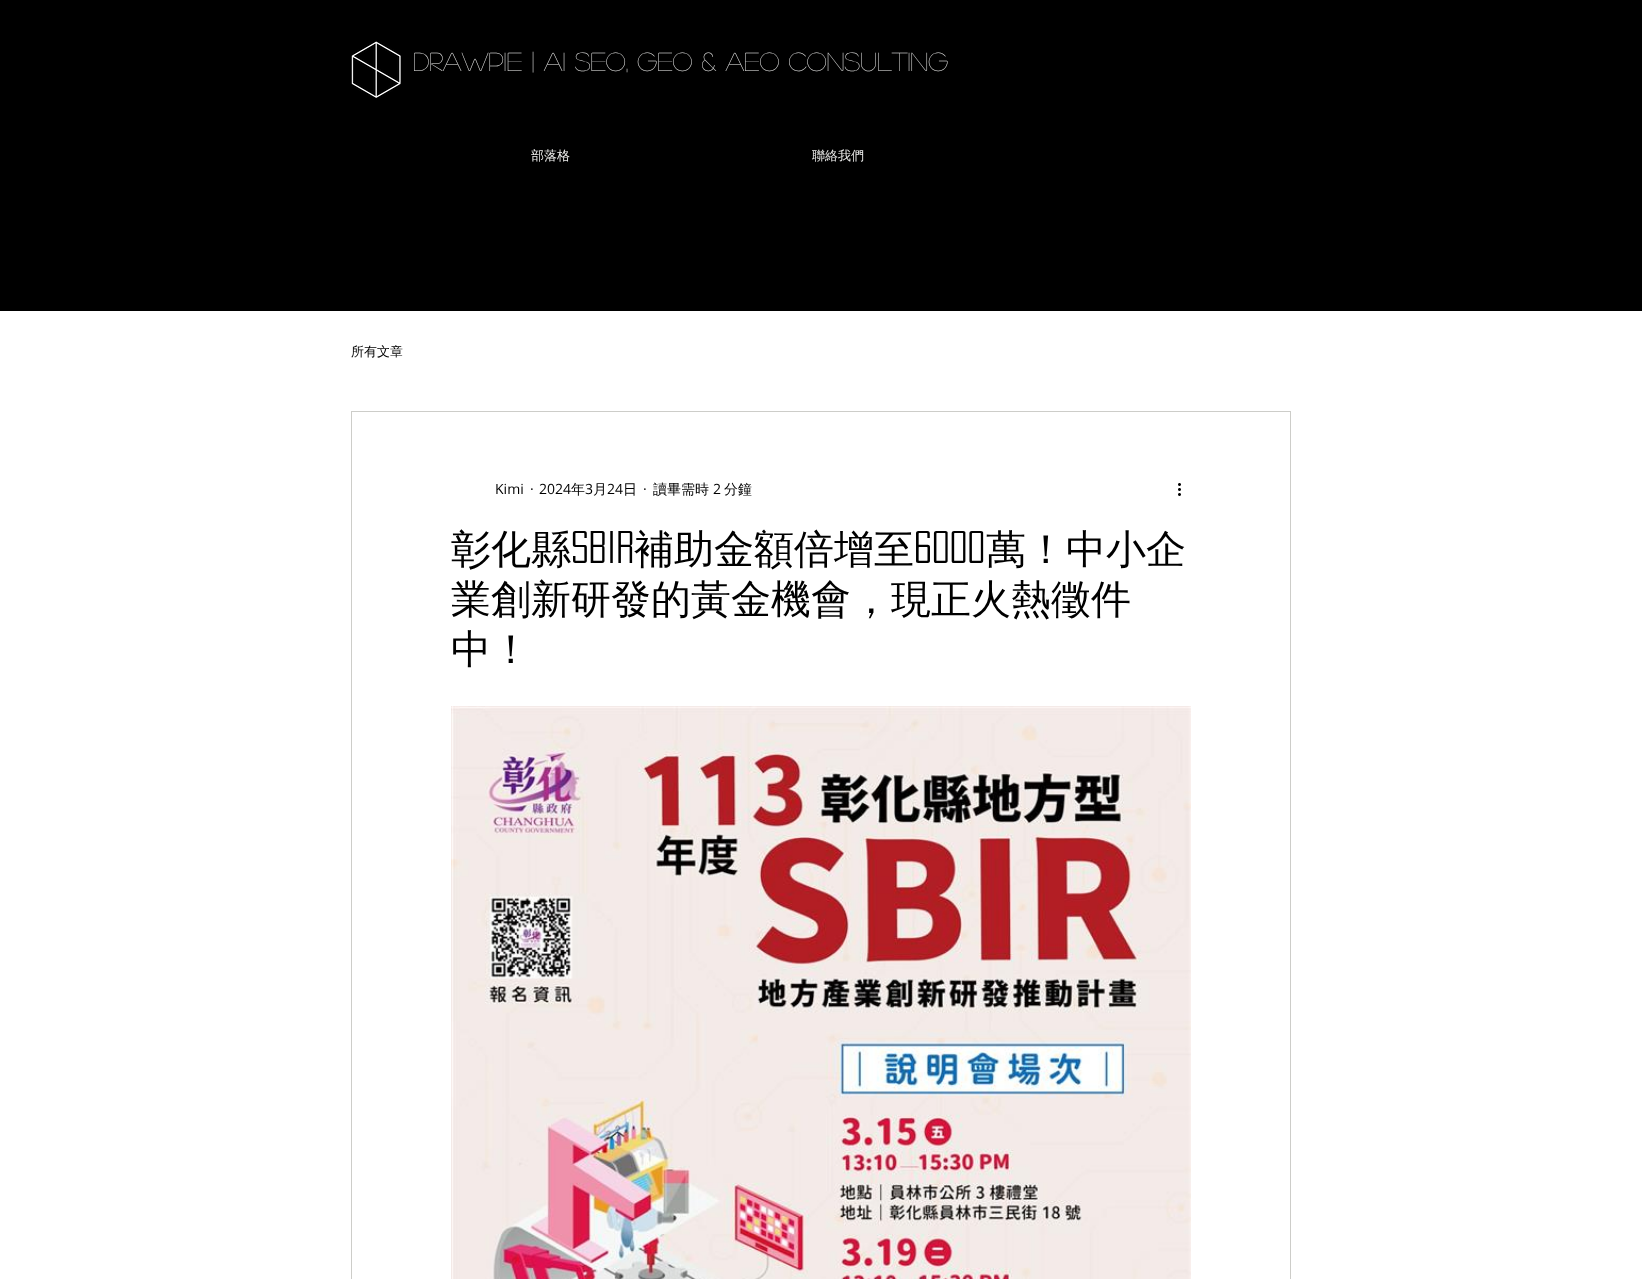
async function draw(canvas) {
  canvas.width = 1642;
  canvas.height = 1279;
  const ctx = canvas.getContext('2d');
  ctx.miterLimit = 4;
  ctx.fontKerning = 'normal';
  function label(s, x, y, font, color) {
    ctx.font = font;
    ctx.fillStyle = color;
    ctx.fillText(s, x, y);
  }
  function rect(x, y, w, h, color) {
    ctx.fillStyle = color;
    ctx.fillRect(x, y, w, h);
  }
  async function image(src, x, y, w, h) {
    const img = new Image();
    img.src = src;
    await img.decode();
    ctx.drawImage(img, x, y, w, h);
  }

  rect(0, 0, 1642, 1279, '#fff');
  rect(0, 0, 1642, 311, '#000');
  await image('assets/img1.png', 351, 41, 50, 57);
  label('Drawpie | AI SEO, GEO & AEO Consulting', 413, 71, '26px "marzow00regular"', '#ededec');
  label('部落格', 531, 160, '500 13px WenQuanYi Zen Hei', '#ededec');
  label('聯絡我們', 812, 160, '500 13px WenQuanYi Zen Hei', '#ededec');
  label('所有文章', 351, 356, '500 13px WenQuanYi Zen Hei', '#000');
  ctx.strokeStyle = '#cdcdc9';
  ctx.strokeRect(351.5, 411.5, 939, 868);
  label('Kimi', 495, 494, '14px Open Sans', '#000');
  label('·', 530, 494, '14px Open Sans', '#000');
  label('2024', 539, 494, '14px Open Sans', '#000');
  label('年', 571, 494, '500 14px WenQuanYi Zen Hei', '#000');
  label('3', 585, 494, '14px Open Sans', '#000');
  label('月', 593, 494, '500 14px WenQuanYi Zen Hei', '#000');
  label('24', 607, 494, '14px Open Sans', '#000');
  label('日', 623, 494, '500 14px WenQuanYi Zen Hei', '#000');
  label('·', 643, 494, '14px Open Sans', '#000');
  label('讀畢需時', 653, 494, '500 14px WenQuanYi Zen Hei', '#000');
  label('2', 713, 494, '14px Open Sans', '#000');
  label('分鐘', 724, 494, '500 14px WenQuanYi Zen Hei', '#000');
  await image('assets/img2.png', 1178, 483, 3, 13);
  label('彰化縣', 451, 563, '500 40px WenQuanYi Zen Hei', '#000');
  label('SBIR', 571, 563, '40px "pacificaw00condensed"', '#000');
  label('補助金額倍增至', 634, 563, '500 40px WenQuanYi Zen Hei', '#000');
  label('6000', 914, 563, '40px "pacificaw00condensed"', '#000');
  label('萬！中小企', 986, 563, '500 40px WenQuanYi Zen Hei', '#000');
  label('業創新研發的黃金機會，現正火熱徵件', 451, 613, '500 40px WenQuanYi Zen Hei', '#000');
  label('中！', 451, 663, '500 40px WenQuanYi Zen Hei', '#000');
  await image('assets/img3.png', 451, 706, 740, 573);
}

draw(document.querySelector('canvas'));
